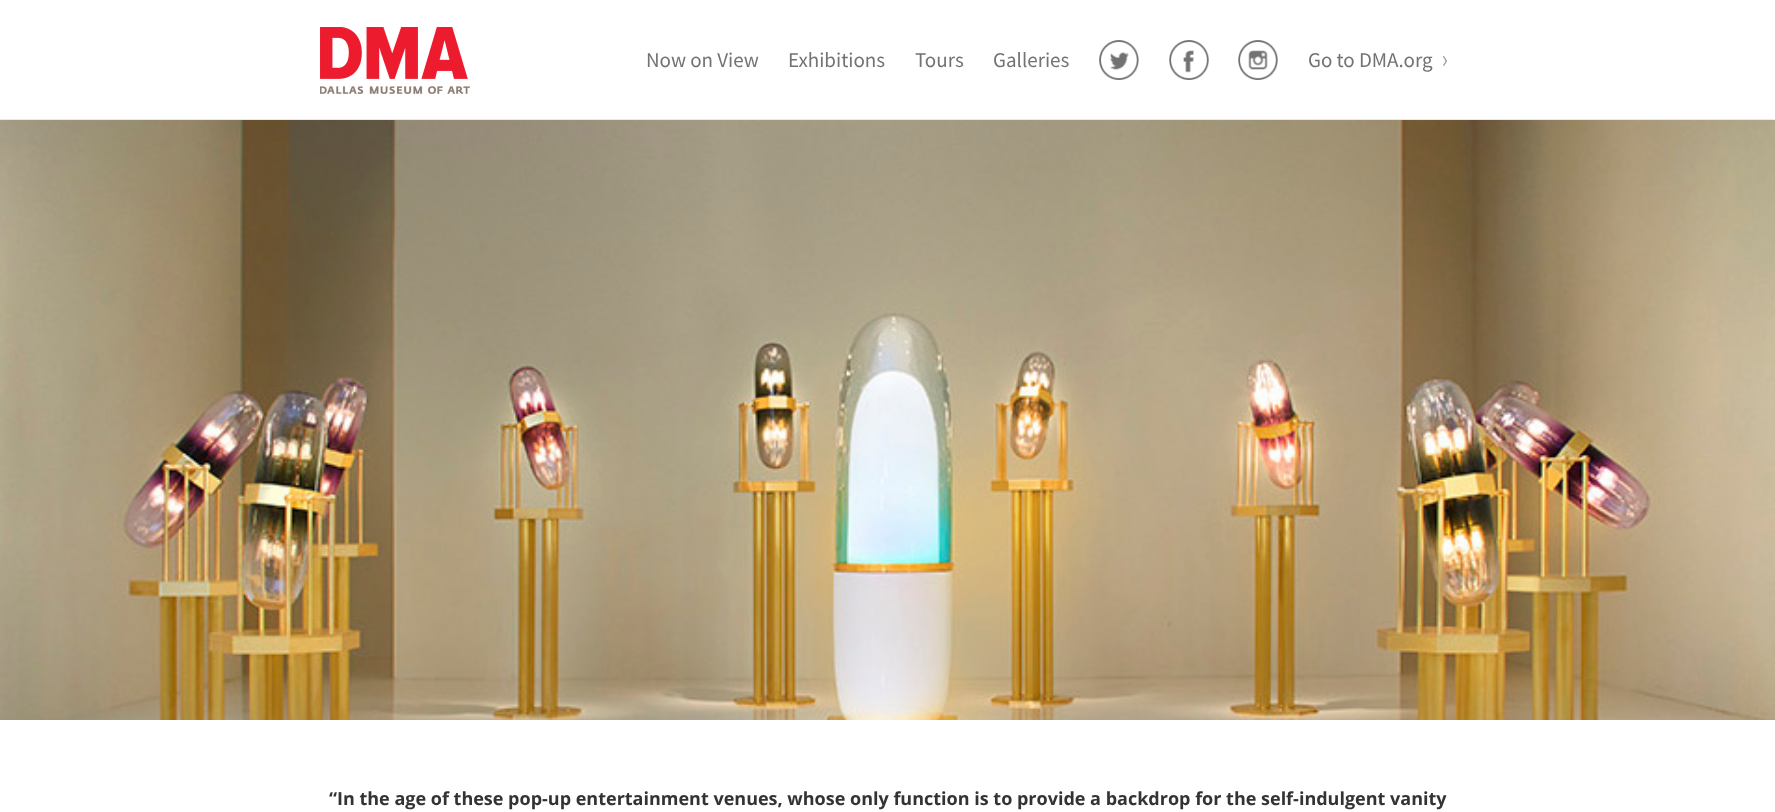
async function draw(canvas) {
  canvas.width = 1775;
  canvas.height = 812;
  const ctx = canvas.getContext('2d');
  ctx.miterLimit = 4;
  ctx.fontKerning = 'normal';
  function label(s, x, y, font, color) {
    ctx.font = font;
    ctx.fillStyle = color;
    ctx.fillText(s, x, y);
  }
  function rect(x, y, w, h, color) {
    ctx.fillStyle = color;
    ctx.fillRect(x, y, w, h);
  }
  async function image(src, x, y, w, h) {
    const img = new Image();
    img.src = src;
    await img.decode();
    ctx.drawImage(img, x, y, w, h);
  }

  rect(0, 0, 1775, 812, '#fff');
  rect(0, 119, 1775, 1, '#eaeaea');
  await image('assets/img1.png', 320, 27, 150, 67);
  label('Now on View', 646, 67, '21px Source Sans Pro', '#737373');
  label('Exhibitions', 788, 67, '21px Source Sans Pro', '#737373');
  label('Tours', 915, 67, '21px Source Sans Pro', '#737373');
  label('Galleries', 993, 67, '21px Source Sans Pro', '#737373');
  await image('assets/img2.png', 1099, 40, 40, 40);
  await image('assets/img3.png', 1169, 40, 40, 40);
  await image('assets/img4.png', 1238, 40, 40, 40);
  await image('assets/img5.png', 1443, 56, 4, 10);
  label('Go to DMA.org', 1308, 67, '21px Source Sans Pro', '#737373');
  await image('assets/img6.png', 0, 120, 1775, 600);
  label('“In the age of these pop-up entertainment venues, whose only function is to provide a backdrop for the self-indulgent vanity', 329, 805, 'bold 18px Open Sans', '#333');
}

draw(document.querySelector('canvas'));
